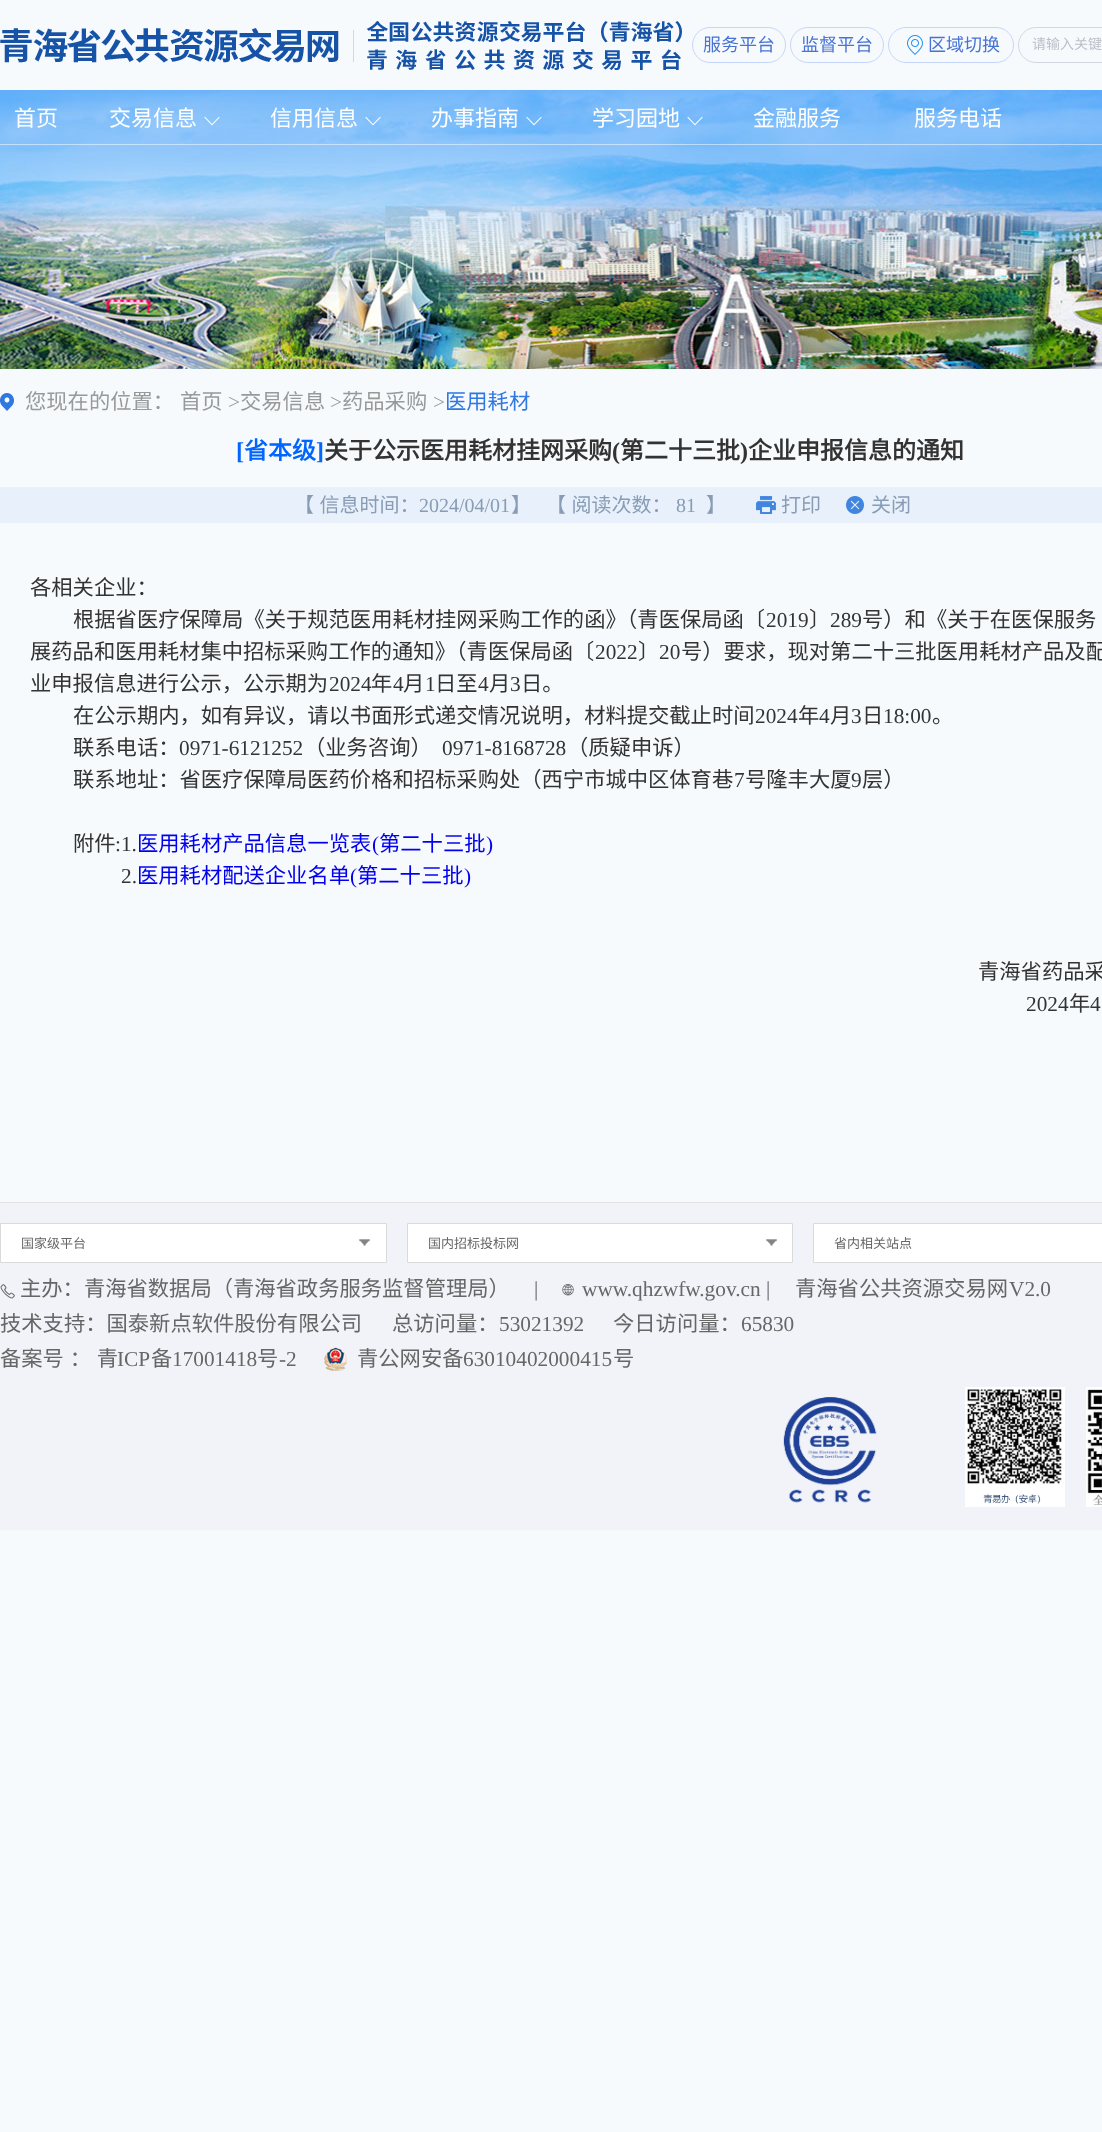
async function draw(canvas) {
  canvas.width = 1102;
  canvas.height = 2132;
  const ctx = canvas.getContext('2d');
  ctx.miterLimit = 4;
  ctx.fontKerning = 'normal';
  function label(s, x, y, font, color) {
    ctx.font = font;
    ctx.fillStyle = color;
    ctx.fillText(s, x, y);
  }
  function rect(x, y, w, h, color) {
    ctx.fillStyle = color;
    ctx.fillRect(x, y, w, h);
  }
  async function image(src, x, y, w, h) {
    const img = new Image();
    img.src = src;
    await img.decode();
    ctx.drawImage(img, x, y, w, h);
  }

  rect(0, 0, 1102, 2132, '#f7fafd');
  await image('assets/img1.png', 0, 90, 1102, 279);
  await image('assets/img2.png', 0, 21, 682, 49);
  ctx.beginPath();
  ctx.roundRect(692.5, 27.5, 93, 35, 17.5);
  ctx.strokeStyle = '#c6d6fa';
  ctx.stroke();
  label('服务平台', 703, 51, '18px Noto Sans CJK SC', '#4873d5');
  ctx.beginPath();
  ctx.roundRect(790.5, 27.5, 93, 35, 17.5);
  ctx.stroke();
  label('监督平台', 801, 51, '18px Noto Sans CJK SC', '#4873d5');
  await image('assets/img3.png', 907, 35, 16, 20);
  ctx.beginPath();
  ctx.roundRect(888.5, 27.5, 125, 35, 17.5);
  ctx.stroke();
  label('区域切换', 928, 51, '18px Noto Sans CJK SC', '#4873d5');
  ctx.beginPath();
  ctx.roundRect(1018.5, 27.5, 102, 35, 17.5);
  ctx.strokeStyle = '#d3d8e0';
  ctx.stroke();
  label('请输入关键', 1032, 49, '14px Noto Sans CJK SC', '#bbbfc9');
  rect(0, 144, 1102, 1, '#ffffff80');
  label('首页', 14, 126, '22px Noto Sans CJK SC', '#fff');
  label('交易信息', 109, 126, '22px Noto Sans CJK SC', '#fff');
  await image('assets/img4.png', 204, 116, 16, 10);
  label('信用信息', 270, 126, '22px Noto Sans CJK SC', '#fff');
  await image('assets/img5.png', 365, 116, 16, 10);
  label('办事指南', 431, 126, '22px Noto Sans CJK SC', '#fff');
  await image('assets/img6.png', 526, 116, 16, 10);
  label('学习园地', 592, 126, '22px Noto Sans CJK SC', '#fff');
  await image('assets/img7.png', 687, 116, 16, 10);
  label('金融服务', 753, 126, '22px Noto Sans CJK SC', '#fff');
  label('服务电话', 914, 126, '22px Noto Sans CJK SC', '#fff');
  await image('assets/img8.png', 0, 393, 14, 18);
  label('您现在的位置：', 25, 409, '21.3px Noto Sans CJK SC', '#999');
  label('首页', 180, 409, '21.3px Noto Sans CJK SC', '#999');
  label('>', 228, 409, '21.3px Liberation Serif', '#999');
  label('交易信息', 240, 409, '21.3px Noto Sans CJK SC', '#999');
  label('>', 330, 409, '21.3px Liberation Serif', '#999');
  label('药品采购', 342, 409, '21.3px Noto Sans CJK SC', '#999');
  label('>', 433, 409, '21.3px Liberation Serif', '#999');
  label('医用耗材', 445, 409, '21.3px Noto Sans CJK SC', '#3078e1');
  label('[', 236, 459, 'bold 24px Liberation Serif', '#06f');
  label('省本级', 244, 459, 'bold 24px Noto Sans CJK SC', '#06f');
  label(']', 316, 459, 'bold 24px Liberation Serif', '#06f');
  label('关于公示医用耗材挂网采购', 324, 459, 'bold 24px Noto Sans CJK SC', '#333');
  label('(', 612, 459, 'bold 24px Liberation Serif', '#333');
  label('第二十三批', 620, 459, 'bold 24px Noto Sans CJK SC', '#333');
  label(')', 740, 459, 'bold 24px Liberation Serif', '#333');
  label('企业申报信息的通知', 748, 459, 'bold 24px Noto Sans CJK SC', '#333');
  rect(0, 487, 1102, 36, '#e8f1fb');
  ctx.wordSpacing = '1px';
  label('【 信息时间：', 294, 512, '20px Noto Sans CJK SC', '#889cb6');
  ctx.wordSpacing = '0px';
  label('2024/04/01', 419, 512, '20px Liberation Serif', '#889cb6');
  label('】', 511, 512, '20px Noto Sans CJK SC', '#889cb6');
  ctx.wordSpacing = '1px';
  label('【 阅读次数：', 546, 512, '20px Noto Sans CJK SC', '#889cb6');
  ctx.wordSpacing = '0px';
  label('81', 676, 512, '20px Liberation Serif', '#889cb6');
  label('】', 706, 512, '20px Noto Sans CJK SC', '#889cb6');
  await image('assets/img9.png', 756, 496, 20, 18);
  label('打印', 781, 512, '20px Noto Sans CJK SC', '#889cb6');
  await image('assets/img10.png', 846, 496, 18, 18);
  label('关闭', 871, 512, '20px Noto Sans CJK SC', '#889cb6');
  label('各相关企业：', 30, 595, '21.3px Noto Sans CJK SC', '#333');
  label('根据省医疗保障局《关于规范医用耗材挂网采购工作的函》（青医保局函〔', 73, 627, '21.3px Noto Sans CJK SC', '#333');
  label('2019', 766, 627, '21.3px Liberation Serif', '#333');
  label('〕', 809, 627, '21.3px Noto Sans CJK SC', '#333');
  label('289', 830, 627, '21.3px Liberation Serif', '#333');
  label('号）和《关于在医保服务', 862, 627, '21.3px Noto Sans CJK SC', '#333');
  label('展药品和医用耗材集中招标采购工作的通知》（青医保局函〔', 30, 659, '21.3px Noto Sans CJK SC', '#333');
  label('2022', 595, 659, '21.3px Liberation Serif', '#333');
  label('〕', 638, 659, '21.3px Noto Sans CJK SC', '#333');
  label('20', 659, 659, '21.3px Liberation Serif', '#333');
  label('号）要求，现对第二十三批医用耗材产品及配', 681, 659, '21.3px Noto Sans CJK SC', '#333');
  label('业申报信息进行公示，公示期为', 30, 691, '21.3px Noto Sans CJK SC', '#333');
  label('2024', 329, 691, '21.3px Liberation Serif', '#333');
  label('年', 371, 691, '21.3px Noto Sans CJK SC', '#333');
  label('4', 393, 691, '21.3px Liberation Serif', '#333');
  label('月', 403, 691, '21.3px Noto Sans CJK SC', '#333');
  label('1', 425, 691, '21.3px Liberation Serif', '#333');
  label('日至', 435, 691, '21.3px Noto Sans CJK SC', '#333');
  label('4', 478, 691, '21.3px Liberation Serif', '#333');
  label('月', 489, 691, '21.3px Noto Sans CJK SC', '#333');
  label('3', 510, 691, '21.3px Liberation Serif', '#333');
  label('日。', 521, 691, '21.3px Noto Sans CJK SC', '#333');
  label('在公示期内，如有异议，请以书面形式递交情况说明，材料提交截止时间', 73, 723, '21.3px Noto Sans CJK SC', '#333');
  label('2024', 755, 723, '21.3px Liberation Serif', '#333');
  label('年', 798, 723, '21.3px Noto Sans CJK SC', '#333');
  label('4', 819, 723, '21.3px Liberation Serif', '#333');
  label('月', 830, 723, '21.3px Noto Sans CJK SC', '#333');
  label('3', 851, 723, '21.3px Liberation Serif', '#333');
  label('日', 862, 723, '21.3px Noto Sans CJK SC', '#333');
  label('18:00', 883, 723, '21.3px Liberation Serif', '#333');
  label('。', 932, 723, '21.3px Noto Sans CJK SC', '#333');
  label('联系电话：', 73, 755, '21.3px Noto Sans CJK SC', '#333');
  label('0971-6121252', 179, 755, '21.3px Liberation Serif', '#333');
  label('（业务咨询）', 304, 755, '21.3px Noto Sans CJK SC', '#333');
  label('0971-8168728', 442, 755, '21.3px Liberation Serif', '#333');
  label('（质疑申诉）', 567, 755, '21.3px Noto Sans CJK SC', '#333');
  label('联系地址：省医疗保障局医药价格和招标采购处（西宁市城中区体育巷', 73, 787, '21.3px Noto Sans CJK SC', '#333');
  label('7', 734, 787, '21.3px Liberation Serif', '#333');
  label('号隆丰大厦', 745, 787, '21.3px Noto Sans CJK SC', '#333');
  label('9', 851, 787, '21.3px Liberation Serif', '#333');
  label('层）', 862, 787, '21.3px Noto Sans CJK SC', '#333');
  label('附件', 73, 851, '21.3px Noto Sans CJK SC', '#333');
  label(':1.', 115, 851, '21.3px Liberation Serif', '#333');
  label('医用耗材产品信息一览表', 137, 851, '21.3px Noto Sans CJK SC', '#00e');
  label('(', 372, 851, '21.3px Liberation Serif', '#00e');
  label('第二十三批', 379, 851, '21.3px Noto Sans CJK SC', '#00e');
  label(')', 486, 851, '21.3px Liberation Serif', '#00e');
  label('2.', 121, 883, '21.3px Liberation Serif', '#333');
  label('医用耗材配送企业名单', 137, 883, '21.3px Noto Sans CJK SC', '#00e');
  label('(', 350, 883, '21.3px Liberation Serif', '#00e');
  label('第二十三批', 357, 883, '21.3px Noto Sans CJK SC', '#00e');
  label(')', 464, 883, '21.3px Liberation Serif', '#00e');
  label('青海省药品采', 978, 979, '21.3px Noto Sans CJK SC', '#333');
  label('2024', 1026, 1011, '21.3px Liberation Serif', '#333');
  label('年', 1069, 1011, '21.3px Noto Sans CJK SC', '#333');
  label('4', 1090, 1011, '21.3px Liberation Serif', '#333');
  rect(0, 1203, 1102, 327, '#f1f3f8');
  rect(0, 1202, 1102, 1, '#e2e3e5');
  ctx.fillStyle = '#fff';
  ctx.beginPath();
  ctx.rect(0.5, 1223.5, 386, 39);
  ctx.fill();
  ctx.strokeStyle = '#dadada';
  ctx.stroke();
  label('国家级平台', 21, 1248, '13px Noto Sans CJK SC', '#666');
  await image('assets/img11.png', 359, 1239, 11, 7);
  ctx.fillStyle = '#fff';
  ctx.beginPath();
  ctx.rect(407.5, 1223.5, 385, 39);
  ctx.fill();
  ctx.stroke();
  label('国内招标投标网', 428, 1248, '13px Noto Sans CJK SC', '#666');
  await image('assets/img11.png', 766, 1239, 11, 7);
  ctx.fillStyle = '#fff';
  ctx.beginPath();
  ctx.rect(813.5, 1223.5, 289, 39);
  ctx.fill();
  ctx.stroke();
  label('省内相关站点', 834, 1248, '13px Noto Sans CJK SC', '#666');
  await image('assets/img12.png', 0, 1284, 15, 15);
  label('主办：青海省数据局（青海省政务服务监督管理局）', 20, 1296, '21.3px Noto Sans CJK SC', '#666');
  label('|', 534, 1296, '21.3px Liberation Serif', '#666');
  await image('assets/img13.png', 562, 1284, 12, 12);
  label('www.qhzwfw.gov.cn |', 582, 1296, '21.3px Liberation Serif', '#666');
  label('青海省公共资源交易网', 795, 1296, '21.3px Noto Sans CJK SC', '#666');
  label('V2.0', 1009, 1296, '21.3px Liberation Serif', '#666');
  label('技术支持：国泰新点软件股份有限公司', 0, 1331, '21.3px Noto Sans CJK SC', '#666');
  label('总访问量：', 392, 1331, '21.3px Noto Sans CJK SC', '#666');
  label('53021392', 499, 1331, '21.3px Liberation Serif', '#666');
  label('今日访问量：', 613, 1331, '21.3px Noto Sans CJK SC', '#666');
  label('65830', 741, 1331, '21.3px Liberation Serif', '#666');
  ctx.wordSpacing = '1px';
  label('备案号 ： 青', 0, 1366, '21.3px Noto Sans CJK SC', '#666');
  ctx.wordSpacing = '0px';
  label('ICP', 117, 1366, '21.3px Liberation Serif', '#666');
  label('备', 151, 1366, '21.3px Noto Sans CJK SC', '#666');
  label('17001418', 172, 1366, '21.3px Liberation Serif', '#666');
  label('号', 257, 1366, '21.3px Noto Sans CJK SC', '#666');
  label('-2', 279, 1366, '21.3px Liberation Serif', '#666');
  await image('assets/img14.png', 324, 1347, 23, 24);
  label('青公网安备', 357, 1366, '21.3px Noto Sans CJK SC', '#666');
  label('63010402000415', 463, 1366, '21.3px Liberation Serif', '#666');
  label('号', 613, 1366, '21.3px Noto Sans CJK SC', '#666');
  await image('assets/img15.png', 783, 1397, 94, 106);
  await image('assets/img16.png', 965, 1387, 100, 120);
  await image('assets/img17.png', 1086, 1387, 16, 120);
}

draw(document.querySelector('canvas'));
